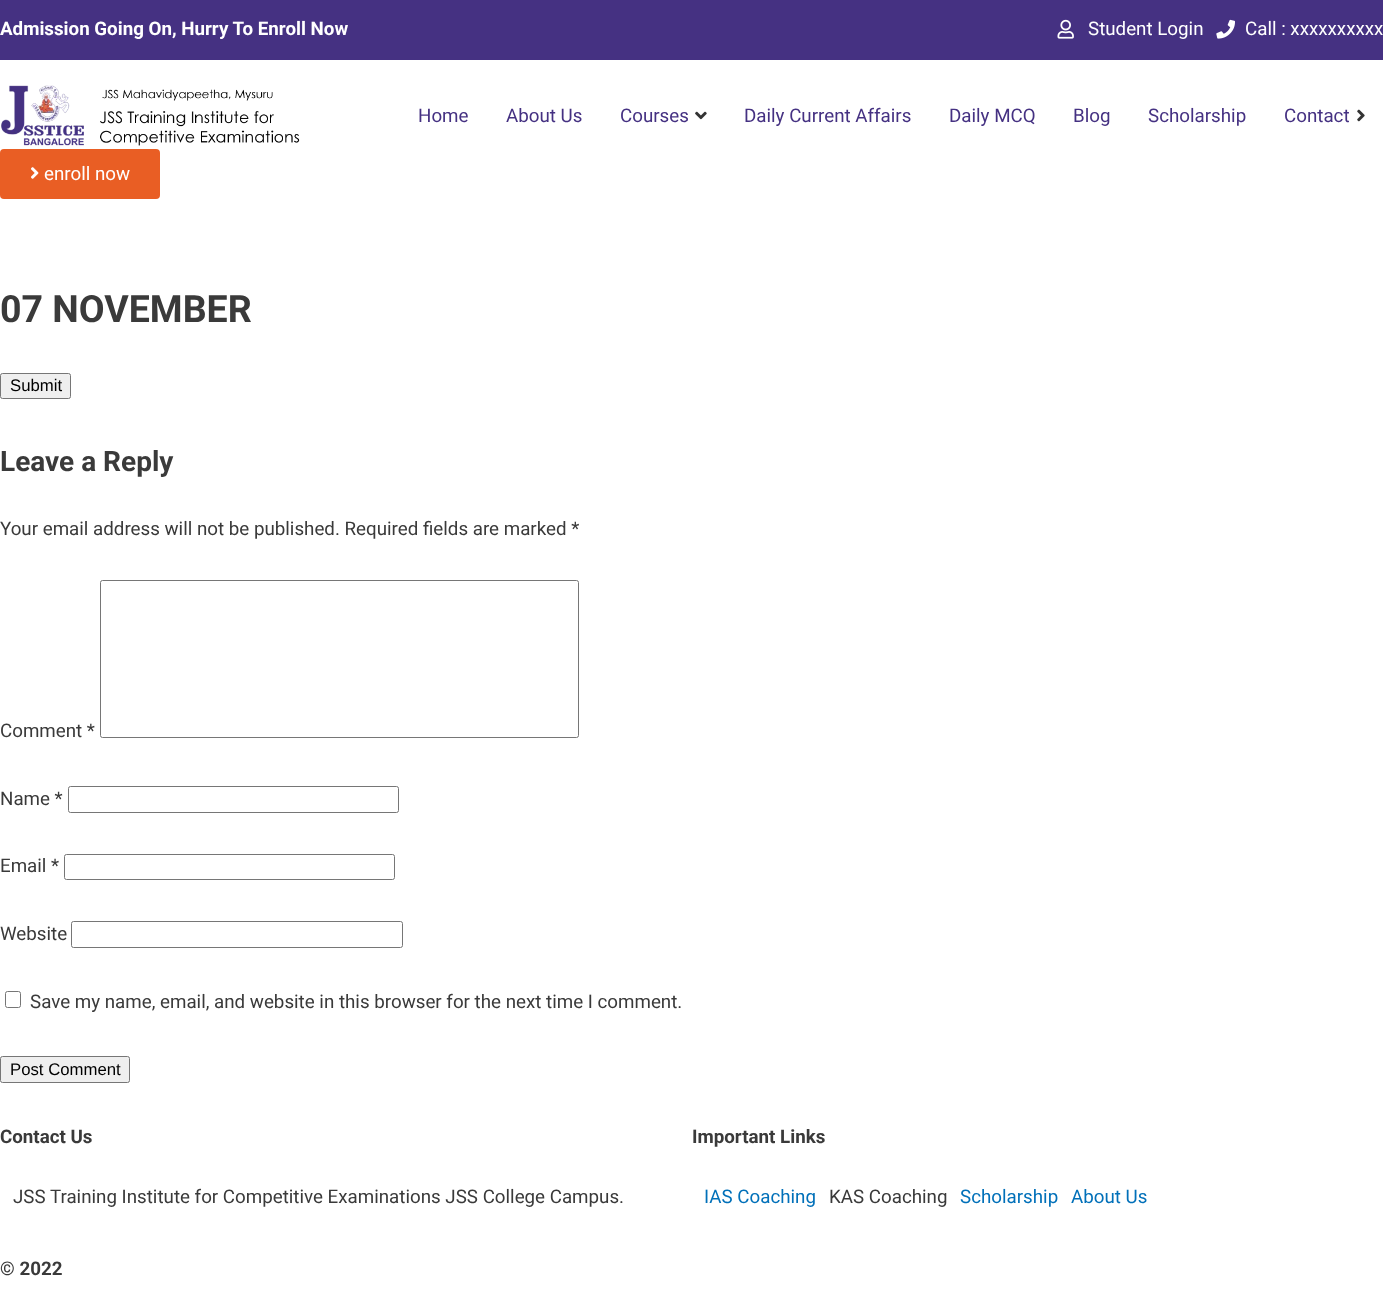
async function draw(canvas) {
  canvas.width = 1383;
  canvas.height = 1293;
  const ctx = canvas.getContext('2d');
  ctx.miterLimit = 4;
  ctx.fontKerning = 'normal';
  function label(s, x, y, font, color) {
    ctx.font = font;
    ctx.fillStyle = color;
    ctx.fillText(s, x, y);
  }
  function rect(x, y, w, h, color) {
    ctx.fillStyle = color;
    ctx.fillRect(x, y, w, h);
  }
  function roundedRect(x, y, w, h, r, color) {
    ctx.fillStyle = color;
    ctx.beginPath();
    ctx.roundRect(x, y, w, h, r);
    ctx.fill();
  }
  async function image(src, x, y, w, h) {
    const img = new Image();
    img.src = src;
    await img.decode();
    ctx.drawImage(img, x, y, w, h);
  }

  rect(0, 0, 1383, 1293, '#fff');
  rect(0, 0, 1383, 60, '#453182');
  label('Admission Going On, Hurry To Enroll Now', 0, 35, 'bold 18.75px Roboto', '#fff');
  await image('assets/img1.png', 1057, 19, 17, 20);
  label('Student Login', 1088, 35, '18.75px Roboto', '#fff');
  await image('assets/img2.png', 1216, 19, 19, 20);
  label('Call : xxxxxxxxxx', 1245, 35, '18.75px Roboto', '#fff');
  await image('assets/img3.png', 1, 85, 299, 61);
  label('Home', 418, 122, '18.75px Roboto', '#453182');
  label('About Us', 506, 122, '18.75px Roboto', '#453182');
  label('Courses', 620, 122, '18.75px Roboto', '#453182');
  await image('assets/img4.png', 695, 111, 12, 9);
  label('Daily Current Affairs', 744, 122, '18.75px Roboto', '#453182');
  label('Daily MCQ', 949, 122, '18.75px Roboto', '#453182');
  label('Blog', 1073, 122, '18.75px Roboto', '#453182');
  label('Scholarship', 1148, 122, '18.75px Roboto', '#453182');
  label('Contact', 1284, 122, '18.75px Roboto', '#453182');
  await image('assets/img5.png', 1357, 109, 8, 13);
  roundedRect(0, 149, 160, 50, 4, '#e95e24');
  await image('assets/img6.png', 31, 167, 8, 12);
  label('enroll now', 44, 180, '18.75px Roboto', '#fff');
  label('07 NOVEMBER', 0, 322, 'bold 37.5px Roboto', '#3a3a3a');
  ctx.fillStyle = '#efefef';
  ctx.beginPath();
  ctx.roundRect(0.5, 373.5, 70, 25, 2);
  ctx.fill();
  ctx.strokeStyle = '#767676';
  ctx.stroke();
  label('Submit', 10, 391, '16.75px Liberation Sans', '#000');
  label('Leave a Reply', 0, 471, 'bold 28px Roboto', '#3a3a3a');
  label('Your email address will not be published. Required fields are marked *', 0, 535, '18.75px Roboto', '#3a3a3a');
  label('Comment *', 0, 737, '18.75px Roboto', '#3a3a3a');
  ctx.beginPath();
  ctx.roundRect(100.5, 580.5, 478, 157, 2);
  ctx.stroke();
  label('Name *', 0, 805, '18.75px Roboto', '#3a3a3a');
  ctx.beginPath();
  ctx.roundRect(68.5, 786.5, 330, 26, 2);
  ctx.stroke();
  label('Email *', 0, 872, '18.75px Roboto', '#3a3a3a');
  ctx.beginPath();
  ctx.roundRect(64.5, 854.5, 330, 25, 2);
  ctx.stroke();
  label('Website', 0, 940, '18.75px Roboto', '#3a3a3a');
  ctx.beginPath();
  ctx.roundRect(71.5, 921.5, 331, 26, 2);
  ctx.stroke();
  ctx.beginPath();
  ctx.roundRect(5.5, 991.5, 15, 16, 2);
  ctx.stroke();
  label('Save my name, email, and website in this browser for the next time I comment.', 30, 1008, '18.75px Roboto', '#3a3a3a');
  ctx.fillStyle = '#efefef';
  ctx.beginPath();
  ctx.roundRect(0.5, 1056.5, 129, 26, 2);
  ctx.fill();
  ctx.stroke();
  label('Post Comment', 10, 1075, '16.75px Liberation Sans', '#000');
  label('Contact Us', 0, 1143, 'bold 18.75px Roboto', '#3a3a3a');
  label('JSS Training Institute for Competitive Examinations JSS College Campus.', 13, 1203, '18.75px Roboto', '#3a3a3a');
  label('Important Links', 692, 1143, 'bold 18.75px Roboto', '#3a3a3a');
  label('IAS Coaching', 704, 1203, '18.75px Roboto', '#0170b9');
  label('KAS Coaching', 829, 1203, '18.75px Roboto', '#3a3a3a');
  label('Scholarship', 960, 1203, '18.75px Roboto', '#0170b9');
  label('About Us', 1071, 1203, '18.75px Roboto', '#0170b9');
  label('© 2022', 0, 1275, 'bold 18.75px Roboto', '#3a3a3a');
}

draw(document.querySelector('canvas'));
